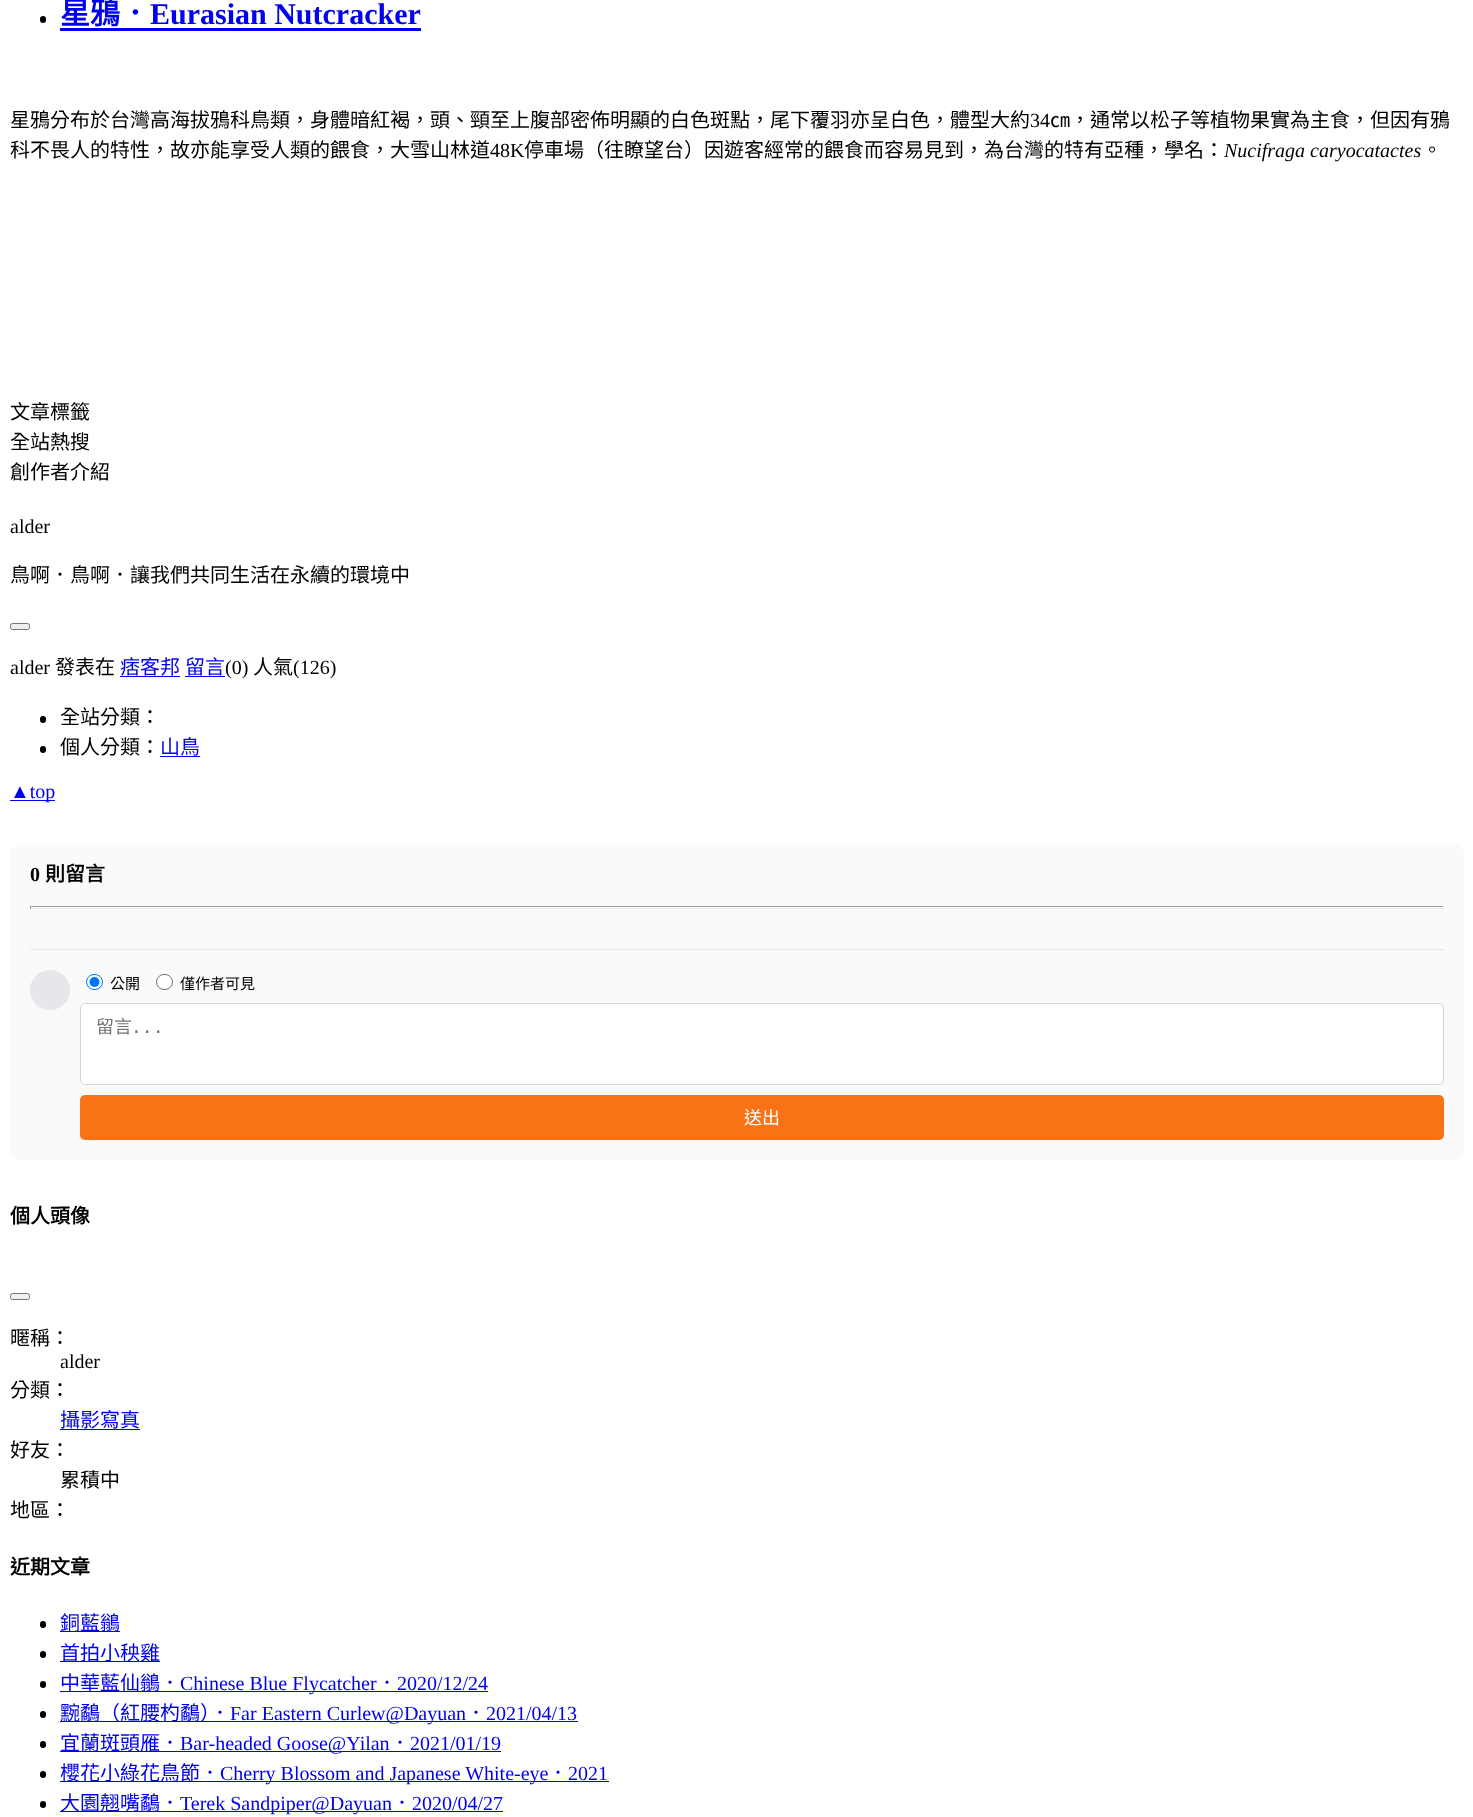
async function draw(canvas) {
  canvas.width = 1473;
  canvas.height = 1817;
  const ctx = canvas.getContext('2d');
  ctx.miterLimit = 4;
  ctx.fontKerning = 'normal';
  function label(s, x, y, font, color) {
    ctx.font = font;
    ctx.fillStyle = color;
    ctx.fillText(s, x, y);
  }
  function rect(x, y, w, h, color) {
    ctx.fillStyle = color;
    ctx.fillRect(x, y, w, h);
  }
  function roundedRect(x, y, w, h, r, color) {
    ctx.fillStyle = color;
    ctx.beginPath();
    ctx.roundRect(x, y, w, h, r);
    ctx.fill();
  }

  rect(0, 0, 1473, 1817, '#fff');
  roundedRect(40, 16, 6, 7, 3, '#000');
  label('星鴉．', 60, 24, 'bold 30px Noto Sans CJK TC', '#00e');
  label('Eurasian Nutcracker', 150, 24, 'bold 30px Liberation Serif', '#00e');
  rect(60, 28, 361, 3, '#00e');
  label('星鴉分布於台灣高海拔鴉科鳥類，身體暗紅褐，頭、頸至上腹部密佈明顯的白色斑點，尾下覆羽亦呈白色，體型大約', 10, 127, '20px Noto Sans CJK TC', '#000');
  label('34', 1030, 127, '20px Liberation Serif', '#000');
  label('㎝，通常以松子等植物果實為主食，但因有鴉', 1050, 127, '20px Noto Sans CJK TC', '#000');
  label('科不畏人的特性，故亦能享受人類的餵食，大雪山林道', 10, 157, '20px Noto Sans CJK TC', '#000');
  label('48K', 490, 157, '20px Liberation Serif', '#000');
  label('停車場（往瞭望台）因遊客經常的餵食而容易見到，為台灣的特有亞種，學名：', 524, 157, '20px Noto Sans CJK TC', '#000');
  label('Nucifraga caryocatactes', 1224, 157, 'italic 20px Liberation Serif', '#000');
  label('。', 1422, 157, '20px Noto Sans CJK TC', '#000');
  label('文章標籤', 10, 419, '20px Noto Sans CJK TC', '#000');
  label('全站熱搜', 10, 449, '20px Noto Sans CJK TC', '#000');
  label('創作者介紹', 10, 479, '20px Noto Sans CJK TC', '#000');
  label('alder', 10, 533, '20px Liberation Serif', '#000');
  label('鳥啊．鳥啊．讓我們共同生活在永續的環境中', 10, 582, '20px Noto Sans CJK TC', '#000');
  ctx.fillStyle = '#efefef';
  ctx.beginPath();
  ctx.roundRect(10.5, 623.5, 19, 6, 2);
  ctx.fill();
  ctx.strokeStyle = '#767676';
  ctx.stroke();
  label('alder', 10, 674, '20px Liberation Serif', '#000');
  label('發表在', 55, 674, '20px Noto Sans CJK TC', '#000');
  label('痞客邦', 120, 674, '20px Noto Sans CJK TC', '#00e');
  rect(120, 676, 60, 1, '#00e');
  label('留言', 185, 674, '20px Noto Sans CJK TC', '#00e');
  rect(185, 676, 40, 1, '#00e');
  label('(0)', 225, 674, '20px Liberation Serif', '#000');
  label('人氣', 253, 674, '20px Noto Sans CJK TC', '#000');
  label('(126)', 293, 674, '20px Liberation Serif', '#000');
  roundedRect(40, 716, 6, 7, 3, '#000');
  label('全站分類：', 60, 724, '20px Noto Sans CJK TC', '#000');
  roundedRect(40, 746, 6, 7, 3, '#000');
  label('個人分類：', 60, 754, '20px Noto Sans CJK TC', '#000');
  label('山鳥', 160, 754, '20px Noto Sans CJK TC', '#00e');
  rect(160, 756, 40, 1, '#00e');
  rect(10, 800, 45, 1, '#00e');
  label('▲top', 10, 798, '20px Liberation Serif', '#00e');
  roundedRect(10, 844, 1454, 316, 10, '#fafafa');
  label('0', 30, 881, 'bold 20px Liberation Serif', '#000');
  label('則留言', 45, 881, 'bold 20px Noto Sans CJK TC', '#000');
  rect(30, 906, 1414, 1, '#9f9f9f');
  rect(1443, 906, 1, 3, '#eee');
  rect(30, 908, 1414, 1, '#eee');
  rect(30, 906, 1, 3, '#9f9f9f');
  rect(30, 949, 1414, 1, '#e5e7eb');
  ctx.beginPath();
  ctx.arc(50, 990, 20, 0, 2 * Math.PI);
  ctx.fill();
  ctx.fillStyle = '#fff';
  ctx.beginPath();
  ctx.roundRect(86.5, 974.5, 16, 15, 7.5);
  ctx.fill();
  ctx.strokeStyle = '#0075ff';
  ctx.stroke();
  ctx.fillStyle = '#0075ff';
  ctx.beginPath();
  ctx.arc(94.5, 982, 5, 0, 2 * Math.PI);
  ctx.fill();
  label('公開', 110, 989, '15px Noto Sans CJK TC', '#000');
  ctx.fillStyle = '#fff';
  ctx.beginPath();
  ctx.roundRect(156.5, 974.5, 16, 15, 7.5);
  ctx.fill();
  ctx.strokeStyle = '#767676';
  ctx.stroke();
  label('僅作者可見', 180, 989, '15px Noto Sans CJK TC', '#000');
  ctx.fillStyle = '#fff';
  ctx.beginPath();
  ctx.roundRect(80.5, 1003.5, 1363, 81, 4.5);
  ctx.fill();
  ctx.strokeStyle = '#d1d5db';
  ctx.stroke();
  label('留言', 96, 1033, '18px Noto Sans CJK TC', '#757575');
  label('...', 131, 1033, '18px DejaVu Sans Mono', '#757575');
  roundedRect(80, 1095, 1364, 45, 5, '#f97316');
  label('送出', 744, 1124, '18px Noto Sans CJK TC', '#fff');
  label('個人頭像', 10, 1223, 'bold 20px Noto Sans CJK TC', '#000');
  ctx.fillStyle = '#efefef';
  ctx.beginPath();
  ctx.roundRect(10.5, 1293.5, 19, 6, 2);
  ctx.fill();
  ctx.strokeStyle = '#767676';
  ctx.stroke();
  label('暱稱：', 10, 1345, '20px Noto Sans CJK TC', '#000');
  label('alder', 60, 1368, '20px Liberation Serif', '#000');
  label('分類：', 10, 1397, '20px Noto Sans CJK TC', '#000');
  label('攝影寫真', 60, 1427, '20px Noto Sans CJK TC', '#00e');
  rect(60, 1429, 80, 1, '#00e');
  label('好友：', 10, 1457, '20px Noto Sans CJK TC', '#000');
  label('累積中', 60, 1487, '20px Noto Sans CJK TC', '#000');
  label('地區：', 10, 1517, '20px Noto Sans CJK TC', '#000');
  label('近期文章', 10, 1574, 'bold 20px Noto Sans CJK TC', '#000');
  roundedRect(40, 1621, 6, 7, 3, '#000');
  rect(60, 1631, 60, 1, '#00e');
  label('銅藍鶲', 60, 1630, '20px Noto Sans CJK TC', '#00e');
  roundedRect(40, 1651, 6, 7, 3, '#000');
  rect(60, 1661, 100, 1, '#00e');
  label('首拍小秧雞', 60, 1660, '20px Noto Sans CJK TC', '#00e');
  roundedRect(40, 1681, 6, 7, 3, '#000');
  rect(60, 1691, 428, 1, '#00e');
  label('中華藍仙鶲．', 60, 1690, '20px Noto Sans CJK TC', '#00e');
  label('Chinese Blue Flycatcher', 180, 1690, '20px Liberation Serif', '#00e');
  label('．', 377, 1690, '20px Noto Sans CJK TC', '#00e');
  label('2020/12/24', 397, 1690, '20px Liberation Serif', '#00e');
  roundedRect(40, 1711, 6, 7, 3, '#000');
  rect(60, 1721, 518, 1, '#00e');
  label('黦鷸（紅腰杓鷸）．', 60, 1720, '20px Noto Sans CJK TC', '#00e');
  label('Far Eastern Curlew@Dayuan', 230, 1720, '20px Liberation Serif', '#00e');
  label('．', 466, 1720, '20px Noto Sans CJK TC', '#00e');
  label('2021/04/13', 486, 1720, '20px Liberation Serif', '#00e');
  roundedRect(40, 1741, 6, 7, 3, '#000');
  rect(60, 1751, 441, 1, '#00e');
  label('宜蘭斑頭雁．', 60, 1750, '20px Noto Sans CJK TC', '#00e');
  label('Bar-headed Goose@Yilan', 180, 1750, '20px Liberation Serif', '#00e');
  label('．', 390, 1750, '20px Noto Sans CJK TC', '#00e');
  label('2021/01/19', 410, 1750, '20px Liberation Serif', '#00e');
  roundedRect(40, 1771, 6, 7, 3, '#000');
  rect(60, 1781, 549, 1, '#00e');
  label('櫻花小綠花鳥節．', 60, 1780, '20px Noto Sans CJK TC', '#00e');
  label('Cherry Blossom and Japanese White-eye', 220, 1780, '20px Liberation Serif', '#00e');
  label('．', 548, 1780, '20px Noto Sans CJK TC', '#00e');
  label('2021', 568, 1780, '20px Liberation Serif', '#00e');
  roundedRect(40, 1801, 6, 7, 3, '#000');
  rect(60, 1811, 443, 1, '#00e');
  label('大園翹嘴鷸．', 60, 1810, '20px Noto Sans CJK TC', '#00e');
  label('Terek Sandpiper@Dayuan', 180, 1810, '20px Liberation Serif', '#00e');
  label('．', 392, 1810, '20px Noto Sans CJK TC', '#00e');
  label('2020/04/27', 412, 1810, '20px Liberation Serif', '#00e');
}

draw(document.querySelector('canvas'));
